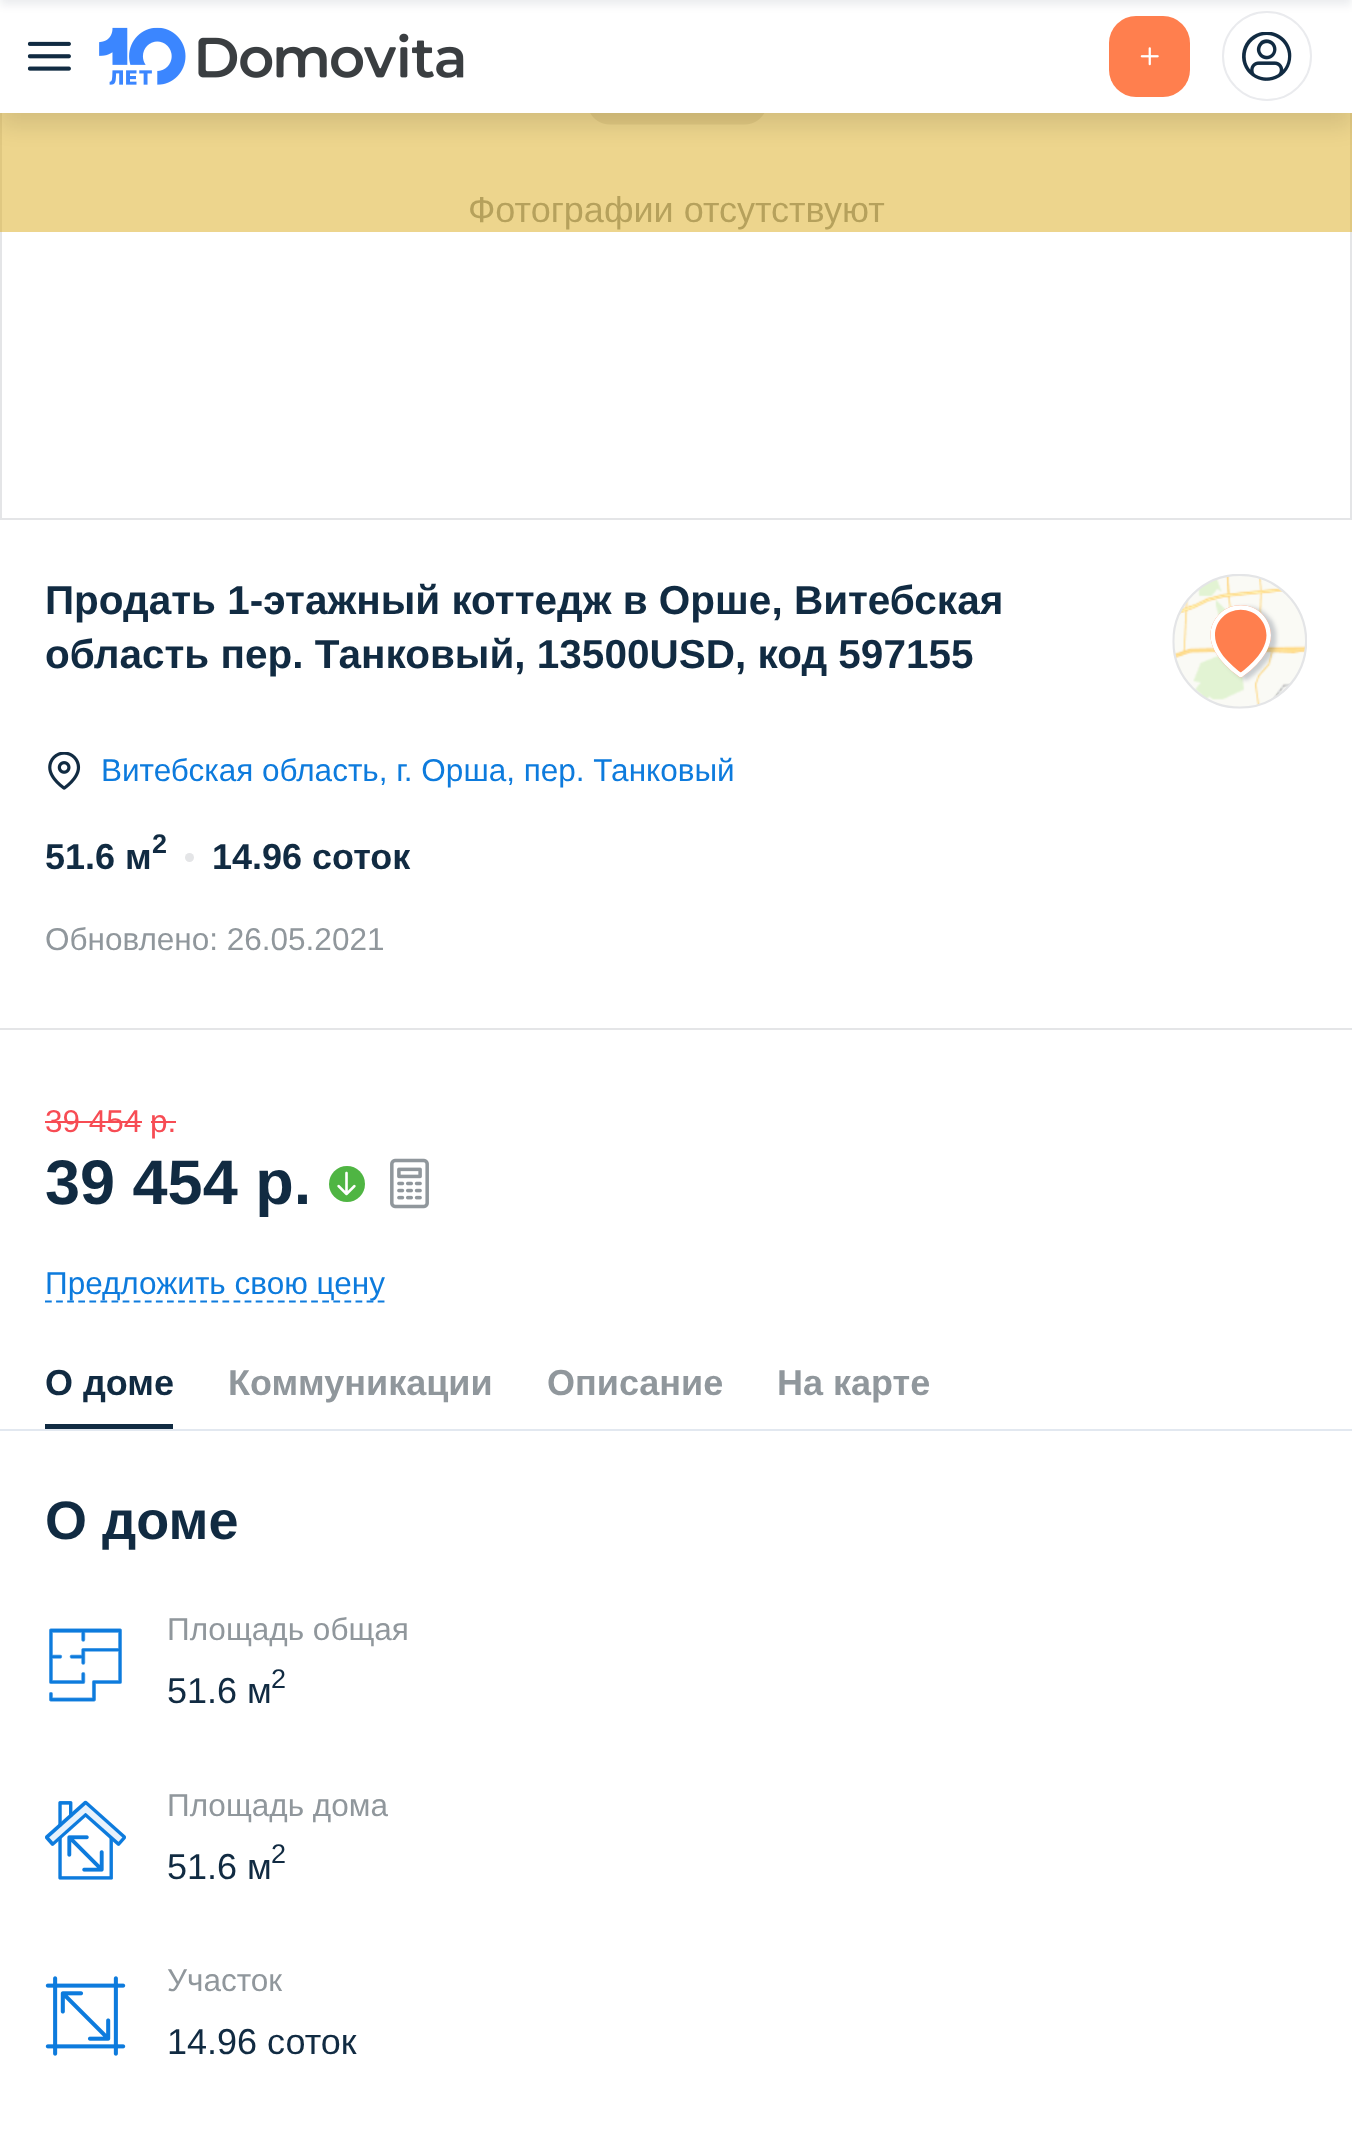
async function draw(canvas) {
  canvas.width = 1352;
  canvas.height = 2137;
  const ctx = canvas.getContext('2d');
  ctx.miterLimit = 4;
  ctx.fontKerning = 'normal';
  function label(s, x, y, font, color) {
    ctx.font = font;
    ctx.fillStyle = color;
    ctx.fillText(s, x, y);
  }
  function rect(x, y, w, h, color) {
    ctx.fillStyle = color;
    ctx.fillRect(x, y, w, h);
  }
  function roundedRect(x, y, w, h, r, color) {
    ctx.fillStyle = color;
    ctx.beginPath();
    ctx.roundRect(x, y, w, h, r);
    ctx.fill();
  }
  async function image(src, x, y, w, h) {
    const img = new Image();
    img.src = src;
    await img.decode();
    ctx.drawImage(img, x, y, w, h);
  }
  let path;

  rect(0, 0, 1352, 2137, '#fff');
  ctx.strokeStyle = '#e4e5e7';
  ctx.lineWidth = 2;
  ctx.strokeRect(1, -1, 1350, 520);
  await image('assets/img5.png', 590, 113, 175, 12);
  label('Фотографии отсутствуют', 468, 222, '36px Liberation Sans', '#90979c');
  rect(0, 113, 1352, 119, '#dbac1b80');
  ctx.fillStyle = '#0000001a';
  ctx.filter = 'blur(11px)';
  ctx.beginPath();
  ctx.rect(0, 14, 1352, 112);
  ctx.fill();
  ctx.filter = 'none';
  rect(0, 0, 1352, 113, '#fff');
  await image('assets/img1.png', 27, 41, 44, 30);
  await image('assets/img2.png', 99, 27, 365, 58);
  roundedRect(1109, 16, 81, 81, 27, '#ff7f4e');
  await image('assets/img3.png', 1140, 47, 19, 19);
  ctx.beginPath();
  ctx.arc(1267, 56, 44, 0, 2 * Math.PI);
  ctx.strokeStyle = '#eaebee';
  ctx.stroke();
  await image('assets/img4.png', 1242, 32, 50, 49);
  ctx.fillStyle = '#00113314';
  ctx.filter = 'blur(4.5px)';
  ctx.beginPath();
  ctx.rect(0, -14, 1352, 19);
  ctx.fill();
  ctx.filter = 'none';
  label('Продать 1-этажный коттедж в Орше, Витебская', 45, 614, 'bold 40.5px Liberation Sans', '#112b42');
  label('область пер. Танковый, 13500USD, код 597155', 45, 668, 'bold 40.5px Liberation Sans', '#112b42');
  await image('assets/img6.png', 1172, 574, 135, 135);
  await image('assets/img7.png', 48, 752, 33, 38);
  label('Витебская область, г. Орша, пер. Танковый', 101, 781, '31.5px Liberation Sans', '#0d7bdd');
  label('51.6 м', 45, 869, 'bold 36px Liberation Sans', '#112b42');
  label('2', 152, 853, 'bold 27px Liberation Sans', '#112b42');
  ctx.fillStyle = '#e4e5e7';
  ctx.beginPath();
  ctx.arc(189.5, 857.5, 4.5, 0, 2 * Math.PI);
  ctx.fill();
  label('14.96 соток', 212, 869, 'bold 36px Liberation Sans', '#112b42');
  label('Обновлено: 26.05.2021', 45, 950, '31.5px Liberation Sans', '#90979c');
  rect(0, 1028, 1352, 2, '#e4e5e7');
  label('39 454 р.', 45, 1132, '31.5px Liberation Sans', '#f74c54');
  rect(45, 1121, 97, 2, '#f74c54');
  rect(151, 1121, 25, 2, '#f74c54');
  label('39 454 р.', 45, 1204, 'bold 63px Liberation Sans', '#112b42');
  ctx.fillStyle = '#4fb543';
  ctx.beginPath();
  ctx.arc(347, 1184, 18, 0, 2 * Math.PI);
  ctx.fill();
  await image('assets/img8.png', 337, 1171, 19, 25);
  await image('assets/img9.png', 390, 1158, 39, 51);
  path = new Path2D('M45 1301.5H385');
  ctx.strokeStyle = '#0d7bdd';
  ctx.lineWidth = 2.2;
  ctx.setLineDash([6.75, 4.34]);
  ctx.stroke(path);
  label('Предложить свою цену', 45, 1294, '31.5px Liberation Sans', '#0d7bdd');
  rect(0, 1429, 1352, 2, '#e2e8f0');
  label('О доме', 45, 1395, 'bold 36px Liberation Sans', '#112b42');
  rect(45, 1424, 128, 5, '#112b42');
  label('Коммуникации', 228, 1395, 'bold 36px Liberation Sans', '#90979c');
  label('Описание', 547, 1395, 'bold 36px Liberation Sans', '#90979c');
  label('На карте', 777, 1395, 'bold 36px Liberation Sans', '#90979c');
  label('О доме', 45, 1539, 'bold 54px Liberation Sans', '#112b42');
  await image('assets/img10.png', 49, 1628, 73, 74);
  label('Площадь общая', 167, 1640, '31.5px Liberation Sans', '#90979c');
  label('51.6 м', 167, 1703, '36px Liberation Sans', '#112b42');
  label('2', 271, 1688, '27px Liberation Sans', '#112b42');
  await image('assets/img11.png', 45, 1800, 81, 80);
  label('Площадь дома', 167, 1816, '31.5px Liberation Sans', '#90979c');
  label('51.6 м', 167, 1879, '36px Liberation Sans', '#112b42');
  label('2', 271, 1863, '27px Liberation Sans', '#112b42');
  await image('assets/img12.png', 45, 1976, 81, 80);
  label('Участок', 167, 1991, '31.5px Liberation Sans', '#90979c');
  label('14.96 соток', 167, 2054, '36px Liberation Sans', '#112b42');
}

draw(document.querySelector('canvas'));
